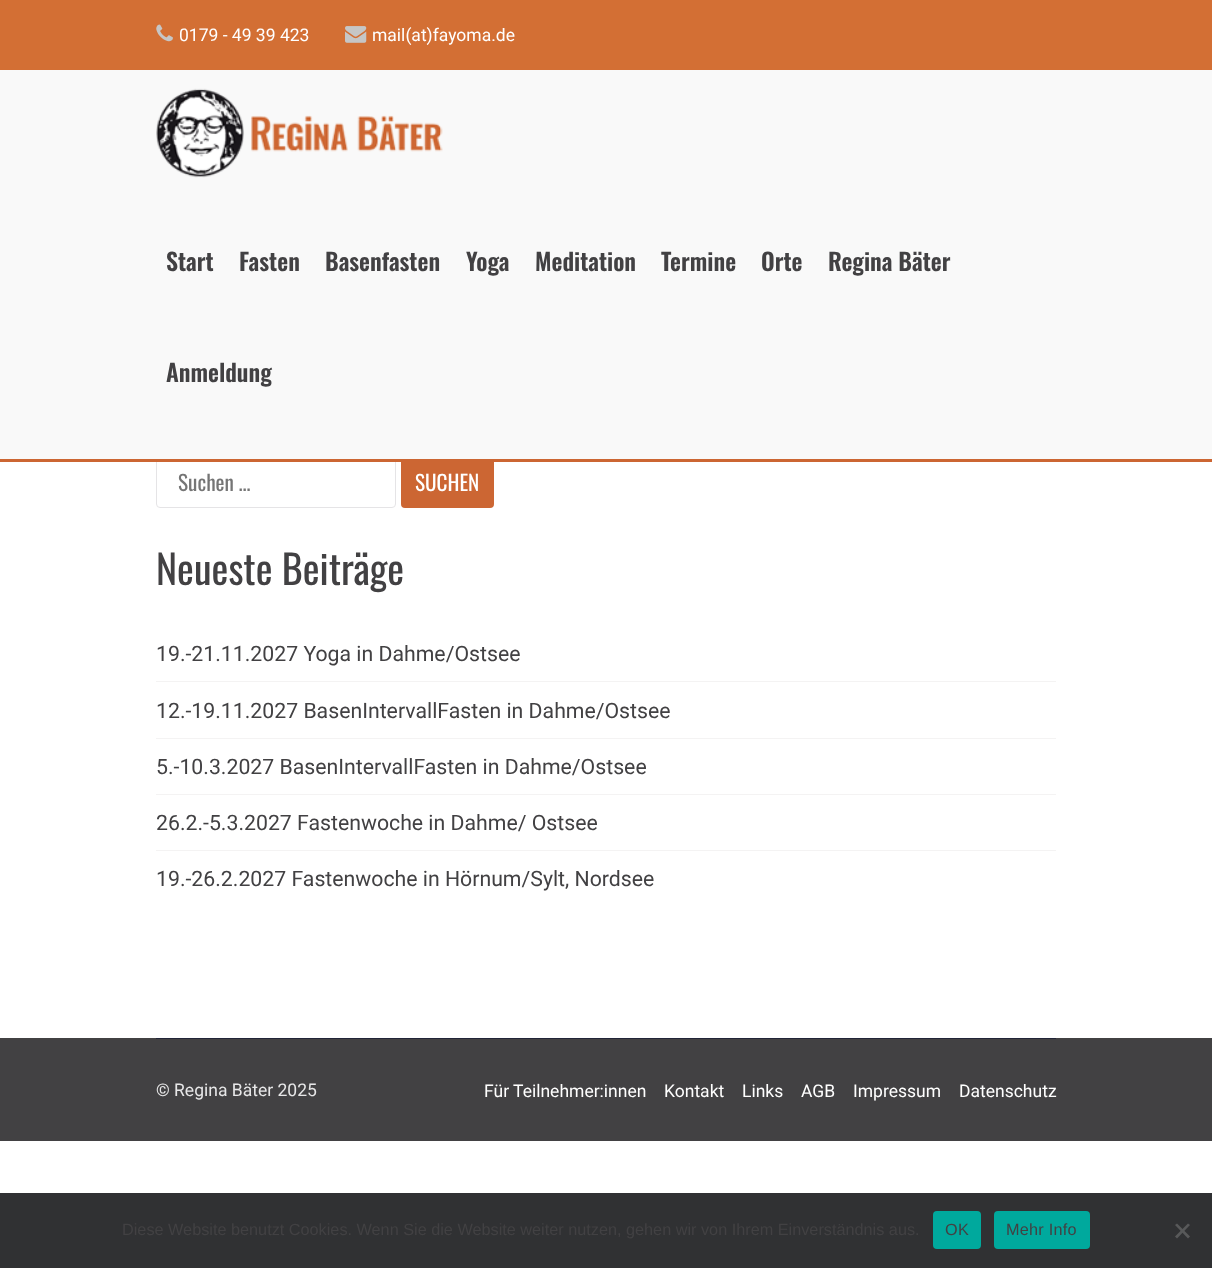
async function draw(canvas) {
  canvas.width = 1212;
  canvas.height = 1268;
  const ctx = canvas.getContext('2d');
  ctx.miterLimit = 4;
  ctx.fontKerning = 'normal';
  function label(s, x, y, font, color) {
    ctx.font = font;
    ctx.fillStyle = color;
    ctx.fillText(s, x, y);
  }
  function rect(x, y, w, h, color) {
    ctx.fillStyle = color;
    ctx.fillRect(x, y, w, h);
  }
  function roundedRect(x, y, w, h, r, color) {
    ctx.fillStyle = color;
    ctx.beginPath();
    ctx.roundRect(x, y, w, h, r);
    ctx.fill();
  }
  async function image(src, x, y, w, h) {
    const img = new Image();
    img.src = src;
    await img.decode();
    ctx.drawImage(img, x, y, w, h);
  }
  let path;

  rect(0, 0, 1212, 1268, '#fff');
  rect(0, 0, 1212, 70, '#d36f34');
  await image('assets/img1.png', 156, 24, 17, 18);
  label('0179 - 49 39 423', 179, 41, '17.5px Roboto', '#fff');
  await image('assets/img2.png', 345, 26, 22, 17);
  label('mail(at)fayoma.de', 372, 41, '17.5px Roboto', '#fff');
  ctx.beginPath();
  ctx.roundRect(156.5, 456.5, 239, 51, 3.5);
  ctx.strokeStyle = '#e5e4e6';
  ctx.stroke();
  roundedRect(401, 456, 93, 52, 4, '#c63');
  rect(0, 70, 1212, 389, '#f9f9f9');
  rect(0, 459, 1212, 3, '#c63');
  await image('assets/img3.png', 156, 88, 287, 90);
  label('Start', 166, 271, '600 23.75px Oswald', '#424143');
  label('Fasten', 239, 271, '600 23.75px Oswald', '#424143');
  label('Basenfasten', 325, 271, '600 23.75px Oswald', '#424143');
  label('Yoga', 466, 271, '600 23.75px Oswald', '#424143');
  label('Meditation', 535, 271, '600 23.75px Oswald', '#424143');
  label('Termine', 661, 271, '600 23.75px Oswald', '#424143');
  label('Orte', 761, 271, '600 23.75px Oswald', '#424143');
  label('Regina Bäter', 828, 271, '600 23.75px Oswald', '#424143');
  label('Anmeldung', 166, 382, '600 23.75px Oswald', '#424143');
  label('Suchen …', 178, 491, '21.25px Oswald', '#757575');
  label('SUCHEN', 415, 491, '21.25px Oswald', '#fff');
  label('Neueste Beiträge', 156, 585, '40px Oswald', '#424143');
  rect(156, 681, 900, 1, '#f4f3f3');
  label('19.-21.11.2027 Yoga in Dahme/Ostsee', 156, 661, '21.25px Roboto', '#424143');
  rect(156, 738, 900, 1, '#f4f3f3');
  label('12.-19.11.2027 BasenIntervallFasten in Dahme/Ostsee', 156, 718, '21.25px Roboto', '#424143');
  rect(156, 794, 900, 1, '#f4f3f3');
  label('5.-10.3.2027 BasenIntervallFasten in Dahme/Ostsee', 156, 774, '21.25px Roboto', '#424143');
  rect(156, 850, 900, 1, '#f4f3f3');
  label('26.2.-5.3.2027 Fastenwoche in Dahme/ Ostsee', 156, 830, '21.25px Roboto', '#424143');
  label('19.-26.2.2027 Fastenwoche in Hörnum/Sylt, Nordsee', 156, 886, '21.25px Roboto', '#424143');
  rect(0, 1038, 1212, 103, '#424143');
  rect(156, 1038, 900, 1, '#212538');
  label('© Regina Bäter 2025', 156, 1096, '17.5px Roboto', '#e7e7e8');
  label('Für Teilnehmer:innen', 484, 1097, '17.5px Roboto', '#fff');
  label('Kontakt', 664, 1097, '17.5px Roboto', '#fff');
  label('Links', 742, 1097, '17.5px Roboto', '#fff');
  label('AGB', 801, 1097, '17.5px Roboto', '#fff');
  label('Impressum', 853, 1097, '17.5px Roboto', '#fff');
  label('Datenschutz', 959, 1097, '17.5px Roboto', '#fff');
  rect(0, 1193, 1212, 75, '#303133');
  label('Diese Website benutzt Cookies. Wenn Sie die Website weiter nutzen, gehen wir von Ihrem Einverständnis aus.', 122, 1235, '16.25px Liberation Sans', '#424143');
  roundedRect(933, 1211, 48, 38, 4, '#00a99d');
  ctx.letterSpacing = '0.25px';
  label('OK', 945, 1235, '16.25px Liberation Sans', '#424143');
  roundedRect(994, 1211, 96, 38, 4, '#00a99d');
  label('Mehr Info', 1006, 1235, '16.25px Liberation Sans', '#424143');
  ctx.fillStyle = '#58595a';
  path = new Path2D('M1188 1223.5L1190 1225L1177 1238.5L1175 1236.5Z');
  ctx.fill(path);
  path = new Path2D('M1175 1225L1177 1223.5L1190 1236.5L1188 1238.5Z');
  ctx.fill(path);
}

draw(document.querySelector('canvas'));
